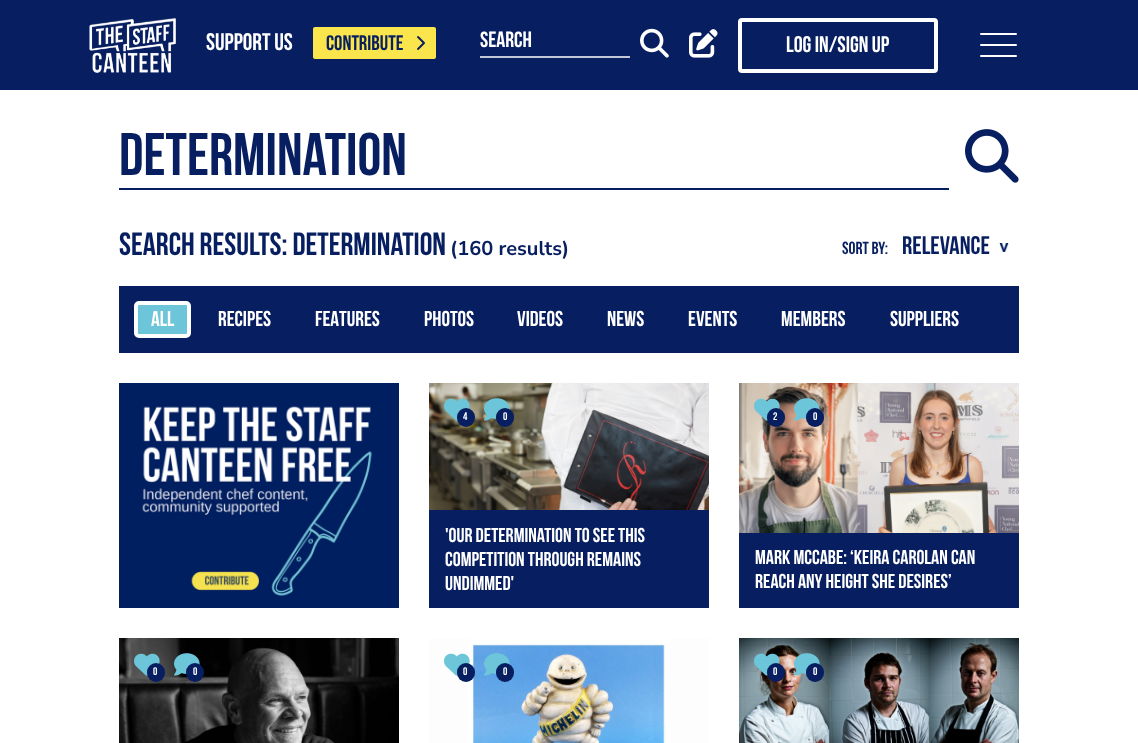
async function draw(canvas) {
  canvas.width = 1138;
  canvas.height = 743;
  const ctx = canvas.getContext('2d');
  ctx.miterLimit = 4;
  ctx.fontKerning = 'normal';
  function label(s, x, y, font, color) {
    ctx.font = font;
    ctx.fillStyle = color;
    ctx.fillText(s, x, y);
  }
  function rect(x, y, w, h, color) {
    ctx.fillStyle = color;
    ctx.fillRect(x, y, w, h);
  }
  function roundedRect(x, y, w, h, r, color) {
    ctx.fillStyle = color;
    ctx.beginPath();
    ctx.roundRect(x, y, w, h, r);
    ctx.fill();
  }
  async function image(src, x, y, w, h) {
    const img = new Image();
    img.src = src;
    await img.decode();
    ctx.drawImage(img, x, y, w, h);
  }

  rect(0, 0, 1138, 743, '#fff');
  rect(0, 0, 1138, 90, '#071f60');
  await image('assets/img1.png', 89, 17, 87, 56);
  label('SUPPORT US', 206, 50, 'bold 24px Bebas Neue', '#fff');
  roundedRect(313, 27, 123, 32, 2, '#fae54d');
  label('CONTRIBUTE', 326, 50, 'bold 21px Bebas Neue', '#071f60');
  await image('assets/img2.png', 417, 36, 8, 14);
  rect(480, 56, 150, 2, '#c1c7d7');
  label('search', 480, 47, 'bold 22px Bebas Neue', '#fff');
  await image('assets/img3.png', 640, 28, 29, 30);
  await image('assets/img4.png', 689, 29, 29, 29);
  ctx.beginPath();
  ctx.roundRect(740, 20, 196, 51, 2);
  ctx.strokeStyle = '#fff';
  ctx.lineWidth = 4;
  ctx.stroke();
  label('Log in/Sign up', 786, 52, 'bold 22.5px Bebas Neue', '#fff');
  roundedRect(980, 33, 37, 2, 1, '#fff');
  roundedRect(980, 44, 37, 2, 1, '#fff');
  roundedRect(980, 55, 37, 2, 1, '#fff');
  rect(119, 188, 830, 2, '#071f60');
  label('Determination', 119, 175, 'bold 60px Bebas Neue', '#071f60');
  await image('assets/img5.png', 965, 129, 54, 54);
  label('Search results: Determination', 119, 255, 'bold 32px Bebas Neue', '#071f60');
  label('(160 results)', 450, 255, '200 20px Nunito Sans', '#071f60');
  label('SORT BY:', 842, 254, 'bold 17.5px Bebas Neue', '#071f60');
  await image('assets/img6.png', 999, 243, 10, 9);
  label('relevance', 902, 254, 'bold 25.5px Bebas Neue', '#071f60');
  rect(119, 286, 900, 67, '#071f60');
  ctx.fillStyle = '#6cc5d8';
  ctx.beginPath();
  ctx.roundRect(136, 303, 53, 33, 3);
  ctx.fill();
  ctx.stroke();
  label('ALL', 151, 326, 'bold 21.5px Bebas Neue', '#fff');
  label('RECIPES', 218, 326, 'bold 21.5px Bebas Neue', '#fff');
  label('FEATURES', 315, 326, 'bold 21.5px Bebas Neue', '#fff');
  label('PHOTOS', 424, 326, 'bold 21.5px Bebas Neue', '#fff');
  label('VIDEOS', 517, 326, 'bold 21.5px Bebas Neue', '#fff');
  label('NEWS', 607, 326, 'bold 21.5px Bebas Neue', '#fff');
  label('EVENTS', 688, 326, 'bold 21.5px Bebas Neue', '#fff');
  label('MEMBERS', 781, 326, 'bold 21.5px Bebas Neue', '#fff');
  label('SUPPLIERS', 890, 326, 'bold 21.5px Bebas Neue', '#fff');
  await image('assets/img7.png', 119, 383, 280, 225);
  await image('assets/img8.png', 429, 383, 280, 127);
  await image('assets/img9.png', 444, 398, 26, 23);
  roundedRect(457, 408, 18, 19, 9, '#071f60');
  label('4', 463, 420, 'bold 11px Bebas Neue', '#fff');
  await image('assets/img10.png', 484, 398, 26, 23);
  roundedRect(496, 408, 18, 19, 9, '#071f60');
  label('0', 503, 420, 'bold 11px Bebas Neue', '#fff');
  rect(429, 510, 280, 98, '#071f60');
  label('\'Our determination to see this', 445, 542, 'bold 20px Bebas Neue', '#fff');
  label('competition through remains', 445, 566, 'bold 20px Bebas Neue', '#fff');
  label('undimmed\'', 445, 590, 'bold 20px Bebas Neue', '#fff');
  await image('assets/img11.png', 739, 383, 280, 150);
  await image('assets/img12.png', 754, 398, 26, 23);
  roundedRect(767, 408, 18, 19, 9, '#071f60');
  label('2', 773, 420, 'bold 11px Bebas Neue', '#fff');
  await image('assets/img13.png', 794, 398, 26, 23);
  roundedRect(806, 408, 18, 19, 9, '#071f60');
  label('0', 813, 420, 'bold 11px Bebas Neue', '#fff');
  rect(739, 533, 280, 75, '#071f60');
  label('Mark McCabe: ‘Keira Carolan can', 755, 564, 'bold 20px Bebas Neue', '#fff');
  label('reach any height she desires’', 755, 588, 'bold 20px Bebas Neue', '#fff');
  await image('assets/img14.png', 119, 638, 280, 105);
  await image('assets/img15.png', 134, 653, 26, 23);
  roundedRect(147, 663, 18, 19, 9, '#071f60');
  label('0', 153, 675, 'bold 11px Bebas Neue', '#fff');
  await image('assets/img16.png', 174, 653, 26, 23);
  roundedRect(186, 663, 18, 19, 9, '#071f60');
  label('0', 193, 675, 'bold 11px Bebas Neue', '#fff');
  await image('assets/img17.png', 429, 638, 280, 105);
  await image('assets/img18.png', 444, 653, 26, 23);
  roundedRect(457, 663, 18, 19, 9, '#071f60');
  label('0', 463, 675, 'bold 11px Bebas Neue', '#fff');
  await image('assets/img19.png', 484, 653, 26, 23);
  roundedRect(496, 663, 18, 19, 9, '#071f60');
  label('0', 503, 675, 'bold 11px Bebas Neue', '#fff');
  await image('assets/img20.png', 739, 638, 280, 105);
  await image('assets/img21.png', 754, 653, 26, 23);
  roundedRect(767, 663, 18, 19, 9, '#071f60');
  label('0', 773, 675, 'bold 11px Bebas Neue', '#fff');
  await image('assets/img22.png', 794, 653, 26, 23);
  roundedRect(806, 663, 18, 19, 9, '#071f60');
  label('0', 813, 675, 'bold 11px Bebas Neue', '#fff');
}

draw(document.querySelector('canvas'));
